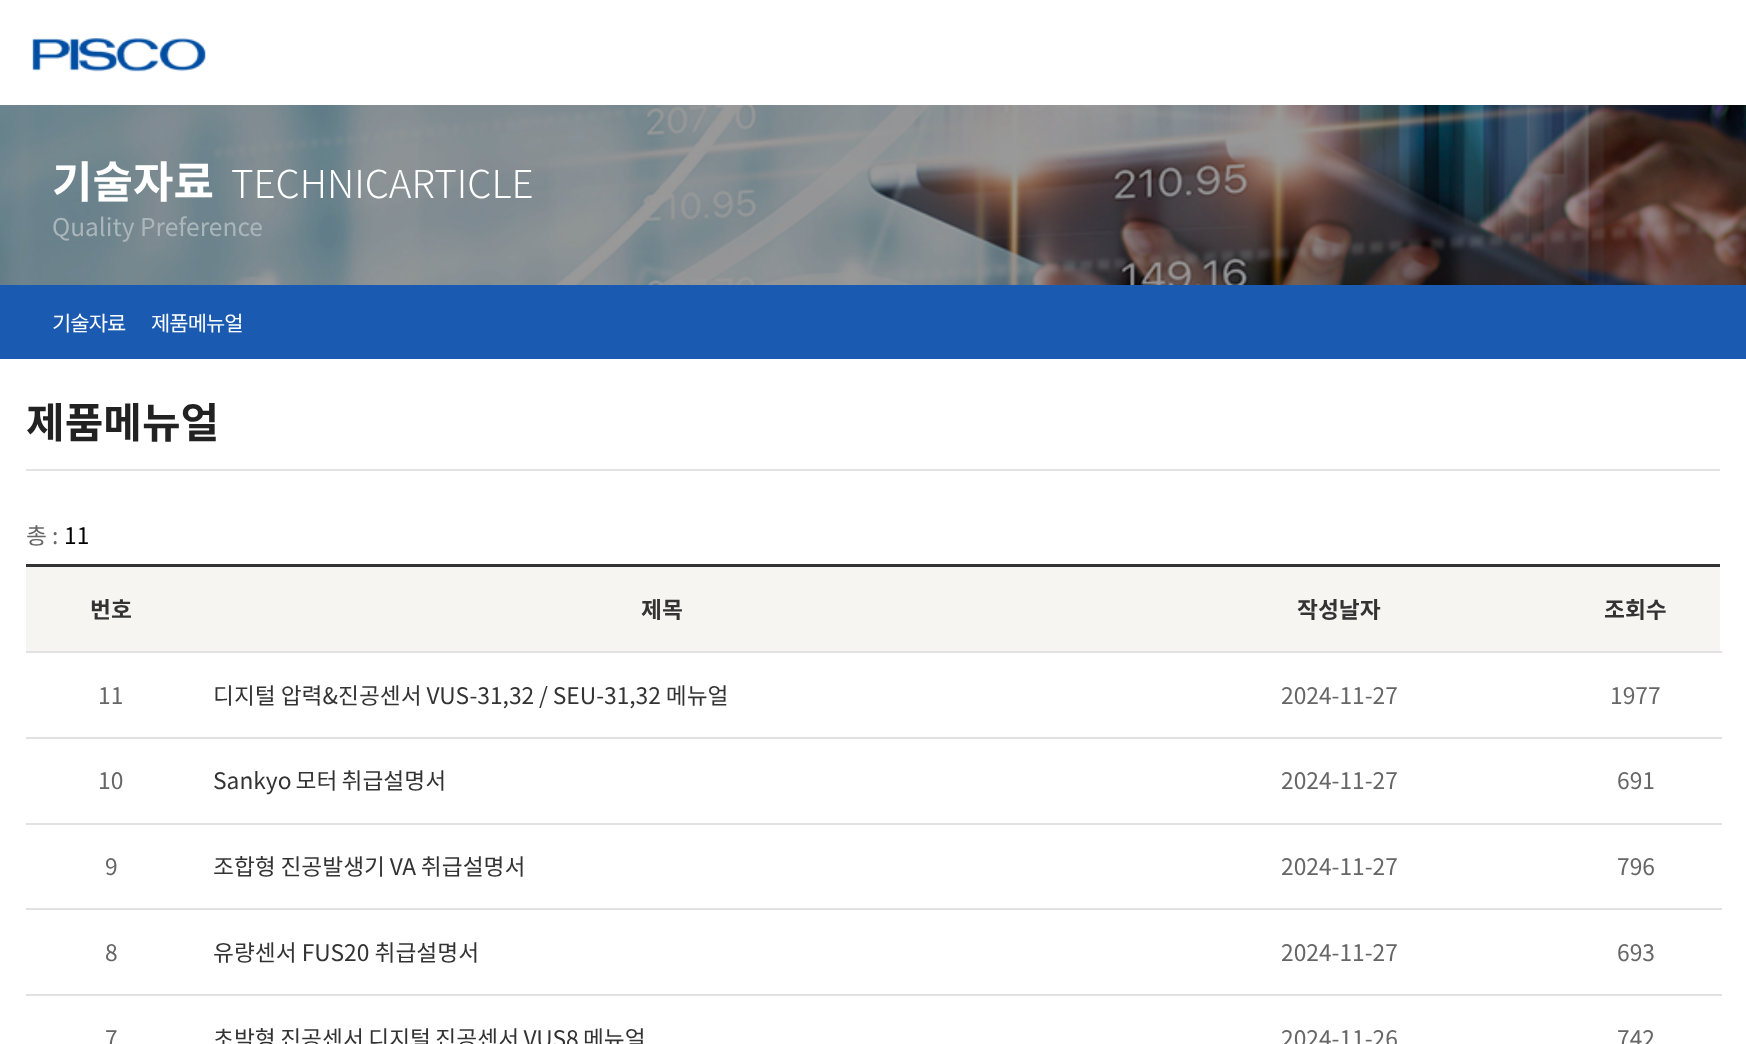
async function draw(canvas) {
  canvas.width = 1746;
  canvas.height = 1044;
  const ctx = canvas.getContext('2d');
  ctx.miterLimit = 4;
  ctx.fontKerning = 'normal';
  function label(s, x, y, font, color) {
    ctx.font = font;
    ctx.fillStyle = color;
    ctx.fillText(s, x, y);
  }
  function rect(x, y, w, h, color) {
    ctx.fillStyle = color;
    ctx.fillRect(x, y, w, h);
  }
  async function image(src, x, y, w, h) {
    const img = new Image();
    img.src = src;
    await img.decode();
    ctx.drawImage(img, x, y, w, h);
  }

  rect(0, 0, 1746, 1044, '#fff');
  await image('assets/img1.png', 32, 38, 174, 34);
  await image('assets/img2.png', 0, 105, 1746, 180);
  label('기술자료', 52, 198, 'bold 44px Noto Sans KR', '#fff');
  label('TECHNICARTICLE', 231, 198, '300 38.5px Noto Sans KR', '#fff');
  label('Quality Preference', 52, 236, '24.5px Noto Sans KR', '#abb6bb');
  rect(0, 285, 1746, 74, '#1a5bb1');
  ctx.letterSpacing = '-1px';
  label('기술자료', 52, 331, '21px Noto Sans KR', '#fff');
  label('제품메뉴얼', 151, 331, '21px Noto Sans KR', '#fff');
  rect(26, 469, 1694, 2, '#e2e3e4');
  ctx.letterSpacing = '0px';
  label('제품메뉴얼', 26, 438, 'bold 42px Noto Sans KR', '#222');
  label('총 :', 26, 544, '22.75px Noto Sans KR', '#666');
  label('11', 64, 544, '22.75px Noto Sans KR', '#000');
  rect(26, 564, 1694, 3, '#333');
  rect(26, 567, 1694, 84, '#f6f5f2');
  label('번호', 90, 618, 'bold 22.75px Noto Sans KR', '#333');
  label('제목', 641, 618, 'bold 22.75px Noto Sans KR', '#333');
  label('작성날자', 1297, 618, 'bold 22.75px Noto Sans KR', '#333');
  label('조회수', 1604, 618, 'bold 22.75px Noto Sans KR', '#333');
  label('11', 98, 704, '22.75px Noto Sans KR', '#666');
  ctx.wordSpacing = '-0.25px';
  label('디지털 압력&진공센서 VUS-31,32 / SEU-31,32 메뉴얼', 213, 704, '22.75px Noto Sans KR', '#333');
  ctx.wordSpacing = '0px';
  label('2024-11-27', 1281, 704, '22.75px Noto Sans KR', '#666');
  rect(26, 651, 1696, 2, '#e1e1e1');
  label('1977', 1610, 704, '22.75px Noto Sans KR', '#666');
  label('10', 98, 789, '22.75px Noto Sans KR', '#666');
  ctx.wordSpacing = '-1px';
  label('Sankyo 모터 취급설명서', 213, 789, '22.75px Noto Sans KR', '#333');
  ctx.wordSpacing = '0px';
  label('2024-11-27', 1281, 789, '22.75px Noto Sans KR', '#666');
  rect(26, 737, 1696, 2, '#e1e1e1');
  label('691', 1617, 789, '22.75px Noto Sans KR', '#666');
  label('9', 105, 875, '22.75px Noto Sans KR', '#666');
  ctx.wordSpacing = '-0.5px';
  label('조합형 진공발생기 VA 취급설명서', 213, 875, '22.75px Noto Sans KR', '#333');
  ctx.wordSpacing = '0px';
  label('2024-11-27', 1281, 875, '22.75px Noto Sans KR', '#666');
  rect(26, 823, 1696, 2, '#e1e1e1');
  label('796', 1617, 875, '22.75px Noto Sans KR', '#666');
  label('8', 105, 961, '22.75px Noto Sans KR', '#666');
  label('유량센서 FUS20 취급설명서', 213, 961, '22.75px Noto Sans KR', '#333');
  label('2024-11-27', 1281, 961, '22.75px Noto Sans KR', '#666');
  rect(26, 908, 1696, 2, '#e1e1e1');
  label('693', 1617, 961, '22.75px Noto Sans KR', '#666');
  label('7', 105, 1047, '22.75px Noto Sans KR', '#666');
  ctx.wordSpacing = '-0.75px';
  label('초박형 진공센서 디지털 진공센서 VUS8 메뉴얼', 213, 1047, '22.75px Noto Sans KR', '#333');
  ctx.wordSpacing = '0px';
  label('2024-11-26', 1281, 1047, '22.75px Noto Sans KR', '#666');
  rect(26, 994, 1696, 2, '#e1e1e1');
  label('742', 1617, 1047, '22.75px Noto Sans KR', '#666');
}

draw(document.querySelector('canvas'));
